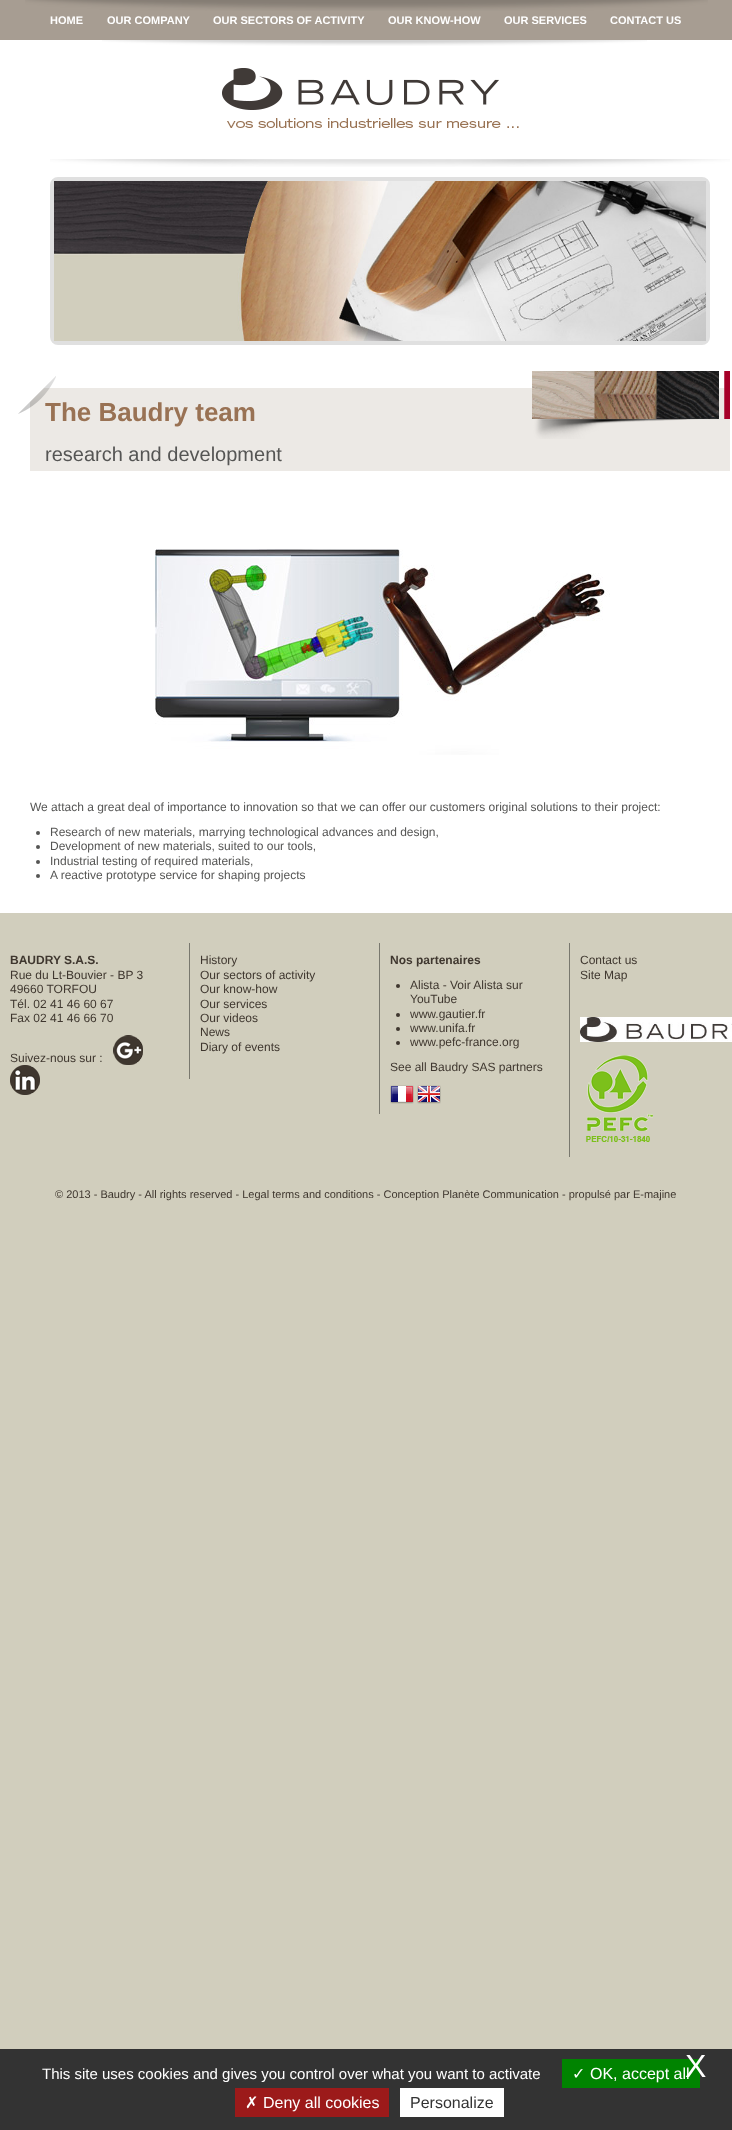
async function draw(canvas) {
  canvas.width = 732;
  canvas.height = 2130;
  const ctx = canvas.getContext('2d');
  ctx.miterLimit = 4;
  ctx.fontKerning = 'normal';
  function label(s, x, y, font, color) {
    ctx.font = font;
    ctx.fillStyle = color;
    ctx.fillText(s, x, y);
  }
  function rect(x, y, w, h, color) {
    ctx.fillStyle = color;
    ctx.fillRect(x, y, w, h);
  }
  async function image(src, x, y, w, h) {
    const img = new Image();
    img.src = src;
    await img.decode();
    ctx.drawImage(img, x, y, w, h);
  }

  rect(0, 0, 732, 2130, '#d1cebd');
  rect(0, 40, 732, 873, '#fff');
  rect(0, 0, 732, 40, '#a79d92');
  await image('assets/img1.png', 25, 0, 683, 11);
  await image('assets/img2.png', 102, 40, 545, 6);
  label('HOME', 50, 24, 'bold 11px Liberation Sans', '#fff');
  label('OUR COMPANY', 107, 24, 'bold 11px Liberation Sans', '#fff');
  label('OUR SECTORS OF ACTIVITY', 213, 24, 'bold 11px Liberation Sans', '#fff');
  label('OUR KNOW-HOW', 388, 24, 'bold 11px Liberation Sans', '#fff');
  label('OUR SERVICES', 504, 24, 'bold 11px Liberation Sans', '#fff');
  label('CONTACT US', 610, 24, 'bold 11px Liberation Sans', '#fff');
  await image('assets/img3.png', 222, 68, 297, 60);
  await image('assets/img4.png', 50, 159, 680, 8);
  ctx.beginPath();
  ctx.roundRect(52, 179, 656, 164, 6);
  ctx.strokeStyle = '#e0e0e0';
  ctx.lineWidth = 4;
  ctx.stroke();
  await image('assets/img5.png', 54, 181, 652, 160);
  rect(30, 388, 700, 83, '#ece9e5');
  await image('assets/img6.png', 18, 376, 38, 38);
  label('The Baudry team', 45, 421, 'bold 26px Liberation Sans', '#997254');
  await image('assets/img7.png', 532, 371, 198, 68);
  label('research and development', 45, 461, '20px Liberation Sans', '#555554');
  await image('assets/img8.png', 155, 549, 455, 206);
  label('We attach a great deal of importance to innovation so that we can offer our customers original solutions to their project:', 30, 811, '12px Liberation Sans', '#555554');
  ctx.beginPath();
  ctx.arc(38, 833, 2, 0, 2 * Math.PI);
  ctx.fill();
  label('Research of new materials, marrying technological advances and design,', 50, 836, '12px Liberation Sans', '#555554');
  ctx.beginPath();
  ctx.arc(38, 847, 2, 0, 2 * Math.PI);
  ctx.fill();
  label('Development of new materials, suited to our tools,', 50, 850, '12px Liberation Sans', '#555554');
  ctx.beginPath();
  ctx.arc(38, 862, 2, 0, 2 * Math.PI);
  ctx.fill();
  label('Industrial testing of required materials,', 50, 865, '12px Liberation Sans', '#555554');
  ctx.beginPath();
  ctx.arc(38, 876, 2, 0, 2 * Math.PI);
  ctx.fill();
  label('A reactive prototype service for shaping projects', 50, 879, '12px Liberation Sans', '#555554');
  label('BAUDRY S.A.S.', 10, 964, 'bold 12px Liberation Sans', '#3f372f');
  label('Rue du Lt-Bouvier - BP 3', 10, 979, '12px Liberation Sans', '#3f372f');
  label('49660 TORFOU', 10, 993, '12px Liberation Sans', '#3f372f');
  label('Tél. 02 41 46 60 67', 10, 1008, '12px Liberation Sans', '#3f372f');
  label('Fax 02 41 46 66 70', 10, 1022, '12px Liberation Sans', '#3f372f');
  label('Suivez-nous sur :', 10, 1062, '12px Liberation Sans', '#3f372f');
  await image('assets/img9.png', 113, 1035, 30, 30);
  await image('assets/img10.png', 10, 1065, 30, 30);
  rect(189, 943, 1, 136, '#79786e');
  label('History', 200, 964, '12px Liberation Sans', '#3f372f');
  label('Our sectors of activity', 200, 979, '12px Liberation Sans', '#3f372f');
  label('Our know-how', 200, 993, '12px Liberation Sans', '#3f372f');
  label('Our services', 200, 1008, '12px Liberation Sans', '#3f372f');
  label('Our videos', 200, 1022, '12px Liberation Sans', '#3f372f');
  label('News', 200, 1036, '12px Liberation Sans', '#3f372f');
  label('Diary of events', 200, 1051, '12px Liberation Sans', '#3f372f');
  rect(379, 943, 1, 171, '#79786e');
  label('Nos partenaires', 390, 964, 'bold 12px Liberation Sans', '#3f372f');
  ctx.beginPath();
  ctx.arc(398, 986, 2, 0, 2 * Math.PI);
  ctx.fill();
  label('Alista - Voir Alista sur', 410, 989, '12px Liberation Sans', '#3f372f');
  label('YouTube', 410, 1003, '12px Liberation Sans', '#3f372f');
  ctx.beginPath();
  ctx.arc(398, 1015, 2, 0, 2 * Math.PI);
  ctx.fill();
  label('www.gautier.fr', 410, 1018, '12px Liberation Sans', '#3f372f');
  ctx.beginPath();
  ctx.arc(398, 1029, 2, 0, 2 * Math.PI);
  ctx.fill();
  label('www.unifa.fr', 410, 1032, '12px Liberation Sans', '#3f372f');
  ctx.beginPath();
  ctx.arc(398, 1043, 2, 0, 2 * Math.PI);
  ctx.fill();
  label('www.pefc-france.org', 410, 1046, '12px Liberation Sans', '#3f372f');
  label('See all Baudry SAS partners', 390, 1071, '12px Liberation Sans', '#3f372f');
  await image('assets/img11.png', 390, 1085, 24, 19);
  await image('assets/img12.png', 417, 1085, 24, 19);
  rect(569, 943, 1, 214, '#79786e');
  label('Contact us', 580, 964, '12px Liberation Sans', '#3f372f');
  label('Site Map', 580, 979, '12px Liberation Sans', '#3f372f');
  await image('assets/img13.png', 580, 1017, 152, 25);
  await image('assets/img14.png', 586, 1055, 67, 87);
  label('© 2013 - Baudry - All rights reserved - Legal terms and conditions - Conception Planète Communication - propulsé par E-majine', 55, 1198, '11px Liberation Sans', '#3f372f');
  rect(0, 2049, 732, 81, '#333');
  label('This site uses cookies and gives you control over what you want to activate', 42, 2079, '15px Liberation Sans', '#fff');
  rect(562, 2059, 138, 29, '#008300');
  label('✓', 572, 2079, '16px DejaVu Sans', '#fff');
  label('OK, accept all', 590, 2079, '16px Liberation Sans', '#fff');
  label('X', 685, 2077, '32px Liberation Sans', '#fff');
  rect(235, 2088, 154, 29, '#9c1a1a');
  label('✗', 245, 2108, '16px DejaVu Sans', '#fff');
  label('Deny all cookies', 263, 2108, '16px Liberation Sans', '#fff');
  rect(400, 2088, 104, 29, '#fff');
  label('Personalize', 410, 2108, '16px Liberation Sans', '#333');
}

draw(document.querySelector('canvas'));
